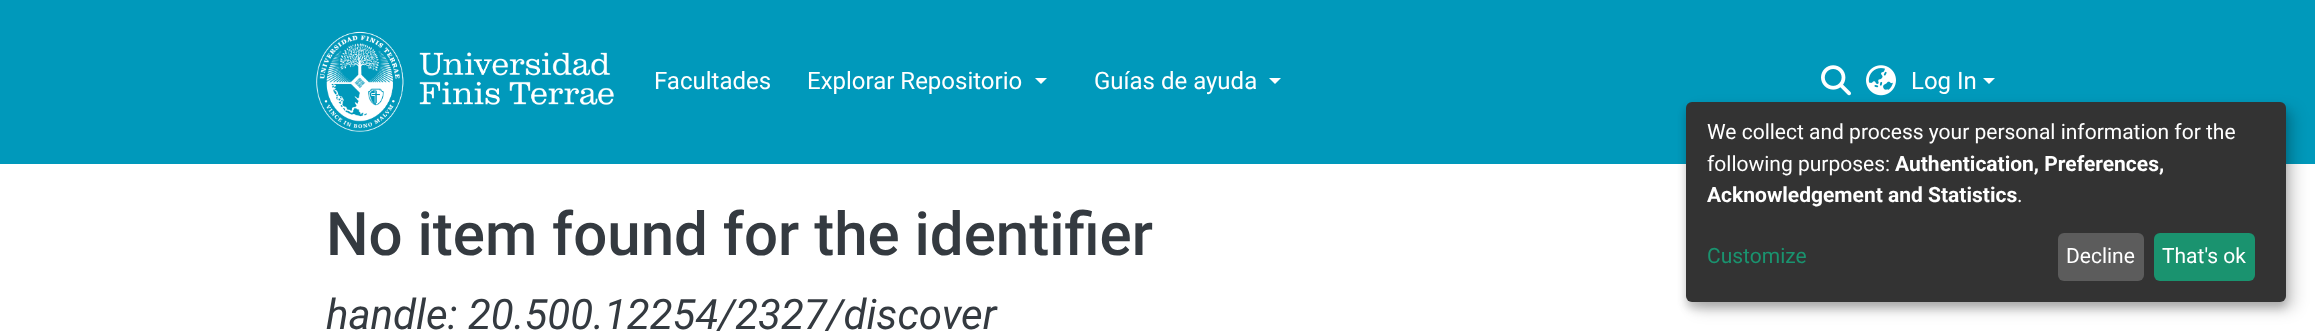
async function draw(canvas) {
  canvas.width = 2315;
  canvas.height = 331;
  const ctx = canvas.getContext('2d');
  ctx.miterLimit = 4;
  ctx.fontKerning = 'normal';
  function label(s, x, y, font, color) {
    ctx.font = font;
    ctx.fillStyle = color;
    ctx.fillText(s, x, y);
  }
  function rect(x, y, w, h, color) {
    ctx.fillStyle = color;
    ctx.fillRect(x, y, w, h);
  }
  function roundedRect(x, y, w, h, r, color) {
    ctx.fillStyle = color;
    ctx.beginPath();
    ctx.roundRect(x, y, w, h, r);
    ctx.fill();
  }
  async function image(src, x, y, w, h) {
    const img = new Image();
    img.src = src;
    await img.decode();
    ctx.drawImage(img, x, y, w, h);
  }
  let path;

  rect(0, 0, 2315, 331, '#fff');
  rect(0, 0, 2315, 164, '#09b');
  await image('assets/img1.png', 316, 31, 298, 101);
  label('Facultades', 654, 89, '24px Roboto', '#fff');
  label('Explorar Repositorio', 807, 89, '24px Roboto', '#fff');
  path = new Path2D('M1035 78H1047L1041 84Z');
  ctx.fill(path);
  label('Guías de ayuda', 1094, 89, '24px Roboto', '#fff');
  path = new Path2D('M1269 78H1281L1275 84Z');
  ctx.fill(path);
  await image('assets/img2.png', 1821, 65, 30, 31);
  await image('assets/img3.png', 1866, 65, 30, 31);
  label('Log In', 1911, 89, '24px Roboto', '#fff');
  path = new Path2D('M1983 78H1995L1989 84Z');
  ctx.fill(path);
  label('No item found for the identifier', 326, 255, '500 60px Roboto', '#343a40');
  label('handle: 20.500.12254/2327/discover', 326, 329, 'italic 42px Roboto', '#343a40');
  ctx.fillStyle = '#00000030';
  ctx.filter = 'blur(7.5px)';
  ctx.beginPath();
  ctx.roundRect(1694, 110, 600, 199, 6);
  ctx.fill();
  ctx.filter = 'none';
  ctx.fillStyle = '#00000033';
  ctx.filter = 'blur(4.5px)';
  ctx.beginPath();
  ctx.roundRect(1686, 108, 600, 200, 6);
  ctx.fill();
  ctx.filter = 'none';
  roundedRect(1686, 102, 600, 200, 6, '#333');
  label('We collect and process your personal information for the', 1707, 139, '21px Roboto', '#fff');
  label('following purposes:', 1707, 171, '21px Roboto', '#fff');
  label('Authentication, Preferences,', 1895, 171, 'bold 21px Roboto', '#fff');
  label('Acknowledgement and Statistics', 1707, 202, 'bold 21px Roboto', '#fff');
  label('.', 2017, 202, '21px Roboto', '#fff');
  label('Customize', 1707, 263, '21px Roboto', '#1a936f');
  roundedRect(2058, 233, 86, 48, 6, '#5c5c5c');
  label('Decline', 2066, 263, '21px Roboto', '#fff');
  roundedRect(2154, 233, 101, 48, 6, '#1a936f');
  label('That\'s ok', 2162, 263, '21px Roboto', '#fff');
}

draw(document.querySelector('canvas'));
